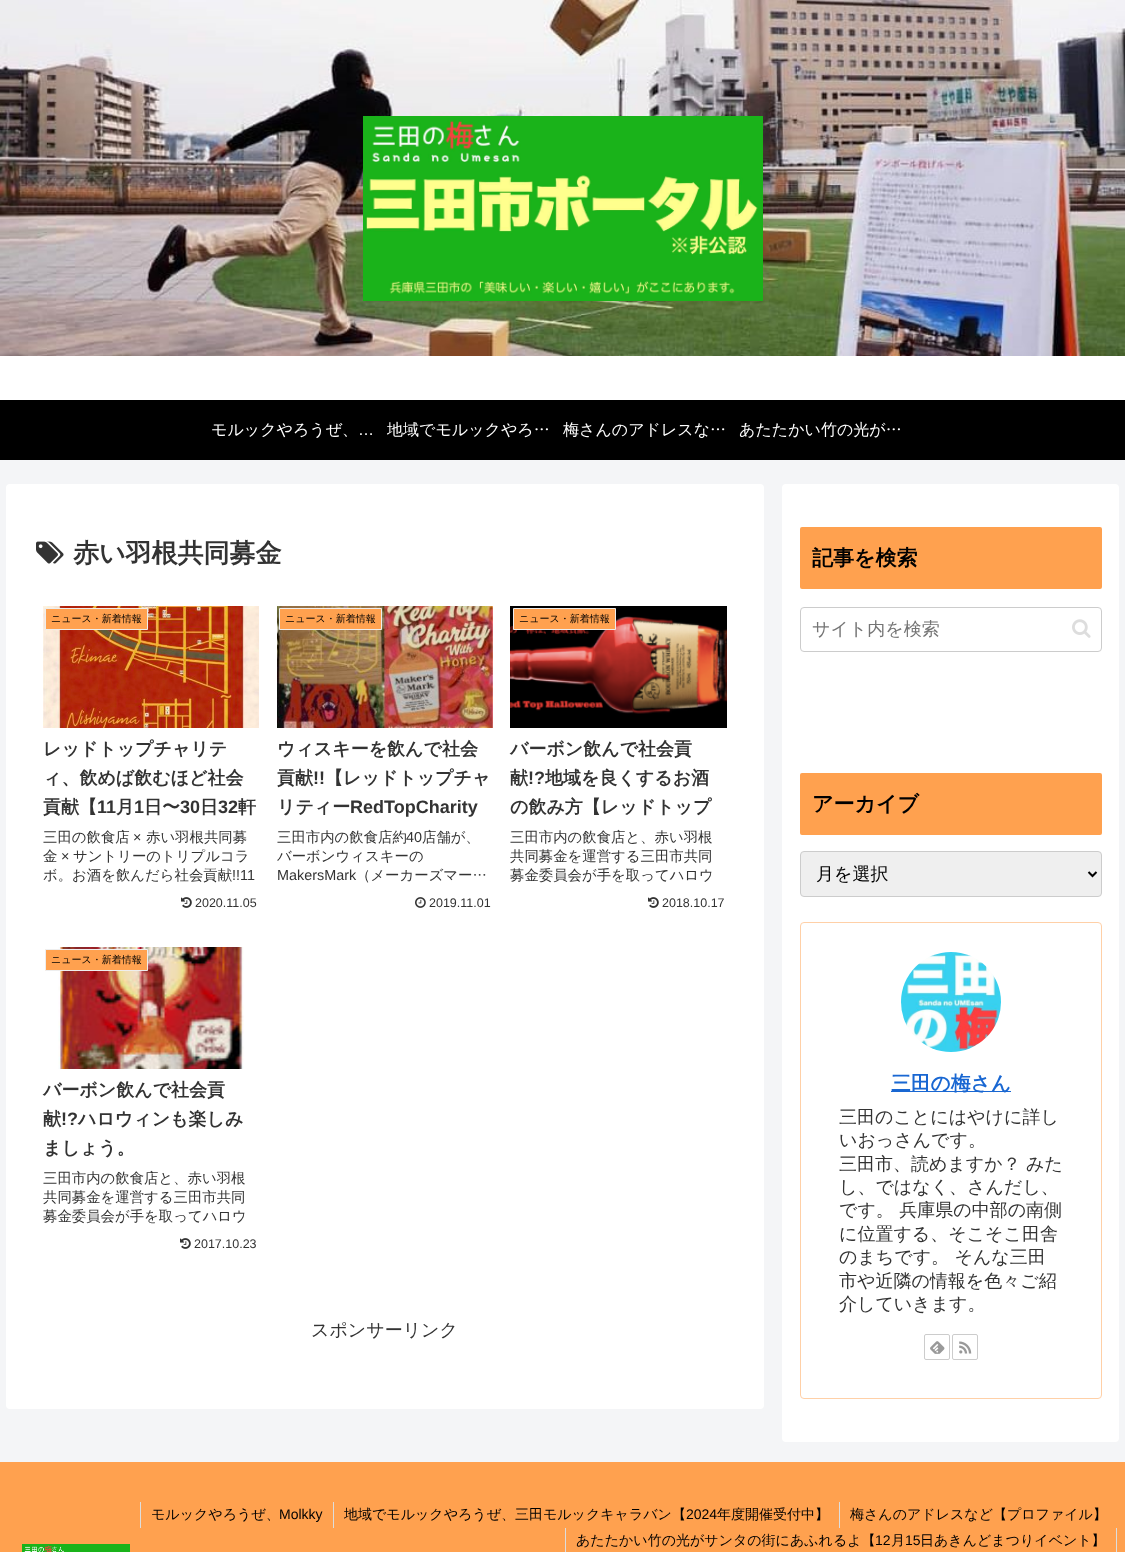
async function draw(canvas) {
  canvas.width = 1125;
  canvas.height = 1552;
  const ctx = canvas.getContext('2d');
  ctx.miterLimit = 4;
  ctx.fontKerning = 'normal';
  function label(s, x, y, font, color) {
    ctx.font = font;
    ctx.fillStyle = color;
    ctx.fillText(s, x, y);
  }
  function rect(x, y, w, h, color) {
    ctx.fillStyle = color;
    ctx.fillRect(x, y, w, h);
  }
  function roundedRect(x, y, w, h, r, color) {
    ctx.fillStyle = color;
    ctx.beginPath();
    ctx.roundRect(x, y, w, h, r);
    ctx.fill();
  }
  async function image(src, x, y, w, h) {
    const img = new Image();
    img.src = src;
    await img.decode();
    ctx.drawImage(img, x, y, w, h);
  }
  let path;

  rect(0, 0, 1125, 1552, '#f4f5f7');
  rect(0, 356, 1125, 44, '#fff');
  await image('assets/img1.png', 0, 0, 1125, 356);
  await image('assets/img2.png', 363, 116, 400, 185);
  rect(0, 400, 1125, 60, '#000');
  label('モルックやろうぜ、', 211, 435, '500 16px WenQuanYi Zen Hei', '#fff');
  label('…', 358, 435, '16px Liberation Sans', '#fff');
  ctx.save();
  ctx.beginPath();
  ctx.rect(387, 416, 176, 28);
  ctx.clip();
  label('地域でモルックやろ…', 387, 435, '500 16px WenQuanYi Zen Hei', '#fff');
  ctx.restore();
  label('梅さんのアドレスな…', 563, 435, '500 16px WenQuanYi Zen Hei', '#fff');
  label('あたたかい竹の光が…', 739, 435, '500 16px WenQuanYi Zen Hei', '#fff');
  roundedRect(6, 484, 758, 925, 4, '#fff');
  await image('assets/img3.png', 36, 541, 28, 23);
  label('赤い羽根共同募金', 73, 562, 'bold 26px WenQuanYi Zen Hei', '#333');
  await image('assets/img4.png', 43, 606, 216, 122);
  ctx.fillStyle = '#ffa14f';
  ctx.beginPath();
  ctx.rect(45.5, 608.5, 102, 21);
  ctx.fill();
  ctx.strokeStyle = '#eee';
  ctx.stroke();
  label('ニュース・新着情報', 51, 622, '500 10px WenQuanYi Zen Hei', '#000');
  label('レッドトップチャリテ', 43, 755, 'bold 18px WenQuanYi Zen Hei', '#333');
  label('ィ、飲めば飲むほど社会', 43, 784, 'bold 18px WenQuanYi Zen Hei', '#333');
  label('貢献【', 43, 813, 'bold 18px WenQuanYi Zen Hei', '#333');
  label('11', 97, 813, 'bold 18px Liberation Sans', '#333');
  label('月', 116, 813, 'bold 18px WenQuanYi Zen Hei', '#333');
  label('1', 134, 813, 'bold 18px Liberation Sans', '#333');
  label('日〜', 144, 813, 'bold 18px WenQuanYi Zen Hei', '#333');
  label('30', 180, 813, 'bold 18px Liberation Sans', '#333');
  label('日', 200, 813, 'bold 18px WenQuanYi Zen Hei', '#333');
  label('32', 218, 813, 'bold 18px Liberation Sans', '#333');
  label('軒', 238, 813, 'bold 18px WenQuanYi Zen Hei', '#333');
  label('三田の飲食店', 43, 842, '500 14.4px WenQuanYi Zen Hei', '#333');
  label('×', 133, 842, '14.4px Liberation Sans', '#333');
  label('赤い羽根共同募', 146, 842, '500 14.4px WenQuanYi Zen Hei', '#333');
  label('金', 43, 861, '500 14.4px WenQuanYi Zen Hei', '#333');
  label('×', 61, 861, '14.4px Liberation Sans', '#333');
  label('サントリーのトリプルコラ', 73, 861, '500 14.4px WenQuanYi Zen Hei', '#333');
  label('ボ。お酒を飲んだら社会貢献', 43, 880, '500 14.4px WenQuanYi Zen Hei', '#333');
  label('!!11', 232, 880, '14.4px Liberation Sans', '#333');
  await image('assets/img5.png', 181, 897, 11, 11);
  label('2020.11.05', 195, 907, '12.5px Liberation Sans', '#333');
  await image('assets/img6.png', 277, 606, 216, 122);
  ctx.fillStyle = '#ffa14f';
  ctx.beginPath();
  ctx.rect(279.5, 608.5, 102, 21);
  ctx.fill();
  ctx.stroke();
  label('ニュース・新着情報', 285, 622, '500 10px WenQuanYi Zen Hei', '#000');
  label('ウィスキーを飲んで社会', 277, 755, 'bold 18px WenQuanYi Zen Hei', '#333');
  label('貢献', 277, 784, 'bold 18px WenQuanYi Zen Hei', '#333');
  label('!!', 313, 784, 'bold 18px Liberation Sans', '#333');
  label('【レッドトップチャ', 325, 784, 'bold 18px WenQuanYi Zen Hei', '#333');
  label('リティー', 277, 813, 'bold 18px WenQuanYi Zen Hei', '#333');
  label('RedTopCharity', 350, 813, 'bold 18px Liberation Sans', '#333');
  label('三田市内の飲食店約', 277, 842, '500 14.4px WenQuanYi Zen Hei', '#333');
  label('40', 406, 842, '14.4px Liberation Sans', '#333');
  label('店舗が、', 422, 842, '500 14.4px WenQuanYi Zen Hei', '#333');
  label('バーボンウィスキーの', 277, 861, '500 14.4px WenQuanYi Zen Hei', '#333');
  label('MakersMark', 277, 880, '14.4px Liberation Sans', '#333');
  label('（メーカーズマー…', 356, 880, '500 14.4px WenQuanYi Zen Hei', '#333');
  await image('assets/img7.png', 415, 897, 11, 11);
  label('2019.11.01', 429, 907, '12.5px Liberation Sans', '#333');
  await image('assets/img8.png', 510, 606, 217, 122);
  ctx.fillStyle = '#ffa14f';
  ctx.beginPath();
  ctx.rect(513.5, 608.5, 102, 21);
  ctx.fill();
  ctx.stroke();
  label('ニュース・新着情報', 519, 622, '500 10px WenQuanYi Zen Hei', '#000');
  label('バーボン飲んで社会貢', 510, 755, 'bold 18px WenQuanYi Zen Hei', '#333');
  label('献', 510, 784, 'bold 18px WenQuanYi Zen Hei', '#333');
  label('!?', 528, 784, 'bold 18px Liberation Sans', '#333');
  label('地域を良くするお酒', 545, 784, 'bold 18px WenQuanYi Zen Hei', '#333');
  label('の飲み方【レッドトップ', 510, 813, 'bold 18px WenQuanYi Zen Hei', '#333');
  label('三田市内の飲食店と、赤い羽根', 510, 842, '500 14.4px WenQuanYi Zen Hei', '#333');
  label('共同募金を運営する三田市共同', 510, 861, '500 14.4px WenQuanYi Zen Hei', '#333');
  label('募金委員会が手を取ってハロウ', 510, 880, '500 14.4px WenQuanYi Zen Hei', '#333');
  await image('assets/img5.png', 648, 897, 11, 11);
  label('2018.10.17', 662, 907, '12.5px Liberation Sans', '#333');
  await image('assets/img9.png', 58, 947, 186, 122);
  ctx.fillStyle = '#ffa14f';
  ctx.beginPath();
  ctx.rect(45.5, 949.5, 102, 21);
  ctx.fill();
  ctx.stroke();
  label('ニュース・新着情報', 51, 963, '500 10px WenQuanYi Zen Hei', '#000');
  label('バーボン飲んで社会貢', 43, 1096, 'bold 18px WenQuanYi Zen Hei', '#333');
  label('献', 43, 1125, 'bold 18px WenQuanYi Zen Hei', '#333');
  label('!?', 61, 1125, 'bold 18px Liberation Sans', '#333');
  label('ハロウィンも楽しみ', 78, 1125, 'bold 18px WenQuanYi Zen Hei', '#333');
  label('ましょう。', 43, 1154, 'bold 18px WenQuanYi Zen Hei', '#333');
  label('三田市内の飲食店と、赤い羽根', 43, 1183, '500 14.4px WenQuanYi Zen Hei', '#333');
  label('共同募金を運営する三田市共同', 43, 1202, '500 14.4px WenQuanYi Zen Hei', '#333');
  label('募金委員会が手を取ってハロウ', 43, 1221, '500 14.4px WenQuanYi Zen Hei', '#333');
  await image('assets/img5.png', 180, 1238, 11, 11);
  label('2017.10.23', 194, 1248, '12.5px Liberation Sans', '#333');
  label('スポンサーリンク', 311, 1336, '500 18px WenQuanYi Zen Hei', '#333');
  roundedRect(782, 484, 337, 958, 4, '#fff');
  roundedRect(800, 527, 302, 62, 2, '#ffa14f');
  label('記事を検索', 812, 565, 'bold 21px WenQuanYi Zen Hei', '#000');
  ctx.beginPath();
  ctx.roundRect(800.5, 607.5, 301, 44, 3.5);
  ctx.strokeStyle = '#ccc';
  ctx.stroke();
  label('サイト内を検索', 812, 635, '500 18px WenQuanYi Zen Hei', '#757575');
  await image('assets/img10.png', 1072, 619, 19, 19);
  roundedRect(800, 773, 302, 62, 2, '#ffa14f');
  label('アーカイブ', 812, 811, 'bold 21px WenQuanYi Zen Hei', '#000');
  ctx.fillStyle = '#efefef';
  ctx.beginPath();
  ctx.roundRect(800.5, 851.5, 301, 45, 3.5);
  ctx.fill();
  ctx.stroke();
  path = new Path2D('M1088.5 872L1092.5 876L1096.5 872');
  ctx.strokeStyle = '#000';
  ctx.lineWidth = 2;
  ctx.stroke(path);
  label('月を選択', 816, 880, '500 18px WenQuanYi Zen Hei', '#000');
  ctx.beginPath();
  ctx.roundRect(800.5, 922.5, 301, 476, 3.5);
  ctx.strokeStyle = '#ffd0a7';
  ctx.lineWidth = 1;
  ctx.stroke();
  await image('assets/img11.png', 901, 952, 100, 100);
  rect(891, 1091, 120, 1, '#1967d2');
  label('三田の梅さん', 891, 1090, 'bold 19.75px WenQuanYi Zen Hei', '#1967d2');
  label('三田のことにはやけに詳し', 839, 1123, '500 18px WenQuanYi Zen Hei', '#333');
  label('いおっさんです。', 839, 1146, '500 18px WenQuanYi Zen Hei', '#333');
  label('三田市、読めますか？ みた', 839, 1170, '500 18px WenQuanYi Zen Hei', '#333');
  label('し、ではなく、さんだし、', 839, 1193, '500 18px WenQuanYi Zen Hei', '#333');
  label('です。 兵庫県の中部の南側', 839, 1216, '500 18px WenQuanYi Zen Hei', '#333');
  label('に位置する、そこそこ田舎', 839, 1240, '500 18px WenQuanYi Zen Hei', '#333');
  label('のまちです。 そんな三田', 839, 1263, '500 18px WenQuanYi Zen Hei', '#333');
  label('市や近隣の情報を色々ご紹', 839, 1287, '500 18px WenQuanYi Zen Hei', '#333');
  label('介していきます。', 839, 1310, '500 18px WenQuanYi Zen Hei', '#333');
  ctx.beginPath();
  ctx.roundRect(924.5, 1334.5, 25, 25, 1.5);
  ctx.strokeStyle = '#ccc';
  ctx.stroke();
  await image('assets/img12.png', 930, 1341, 15, 13);
  ctx.beginPath();
  ctx.roundRect(952.5, 1334.5, 25, 25, 1.5);
  ctx.stroke();
  await image('assets/img13.png', 959, 1341, 13, 13);
  rect(0, 1462, 1125, 90, '#ffa14f');
  await image('assets/img14.png', 22, 1544, 108, 8);
  rect(140, 1502, 1, 26, '#ddd');
  label('モルックやろうぜ、', 151, 1519, '500 14px WenQuanYi Zen Hei', '#000');
  label('Molkky', 279, 1519, '14px Liberation Sans', '#000');
  rect(333, 1502, 1, 26, '#ddd');
  label('地域でモルックやろうぜ、三田モルックキャラバン【', 344, 1519, '500 14px WenQuanYi Zen Hei', '#000');
  label('2024', 686, 1519, '14px Liberation Sans', '#000');
  label('年度開催受付中】', 717, 1519, '500 14px WenQuanYi Zen Hei', '#000');
  rect(839, 1502, 1, 26, '#ddd');
  label('梅さんのアドレスなど【プロファイル】', 850, 1519, '500 14px WenQuanYi Zen Hei', '#000');
  rect(1116, 1528, 1, 24, '#ddd');
  rect(565, 1528, 1, 24, '#ddd');
  label('あたたかい竹の光がサンタの街にあふれるよ【', 576, 1545, '500 14px WenQuanYi Zen Hei', '#000');
  label('12', 875, 1545, '14px Liberation Sans', '#000');
  label('月', 891, 1545, '500 14px WenQuanYi Zen Hei', '#000');
  label('15', 905, 1545, '14px Liberation Sans', '#000');
  label('日あきんどまつりイベント】', 920, 1545, '500 14px WenQuanYi Zen Hei', '#000');
}

draw(document.querySelector('canvas'));
